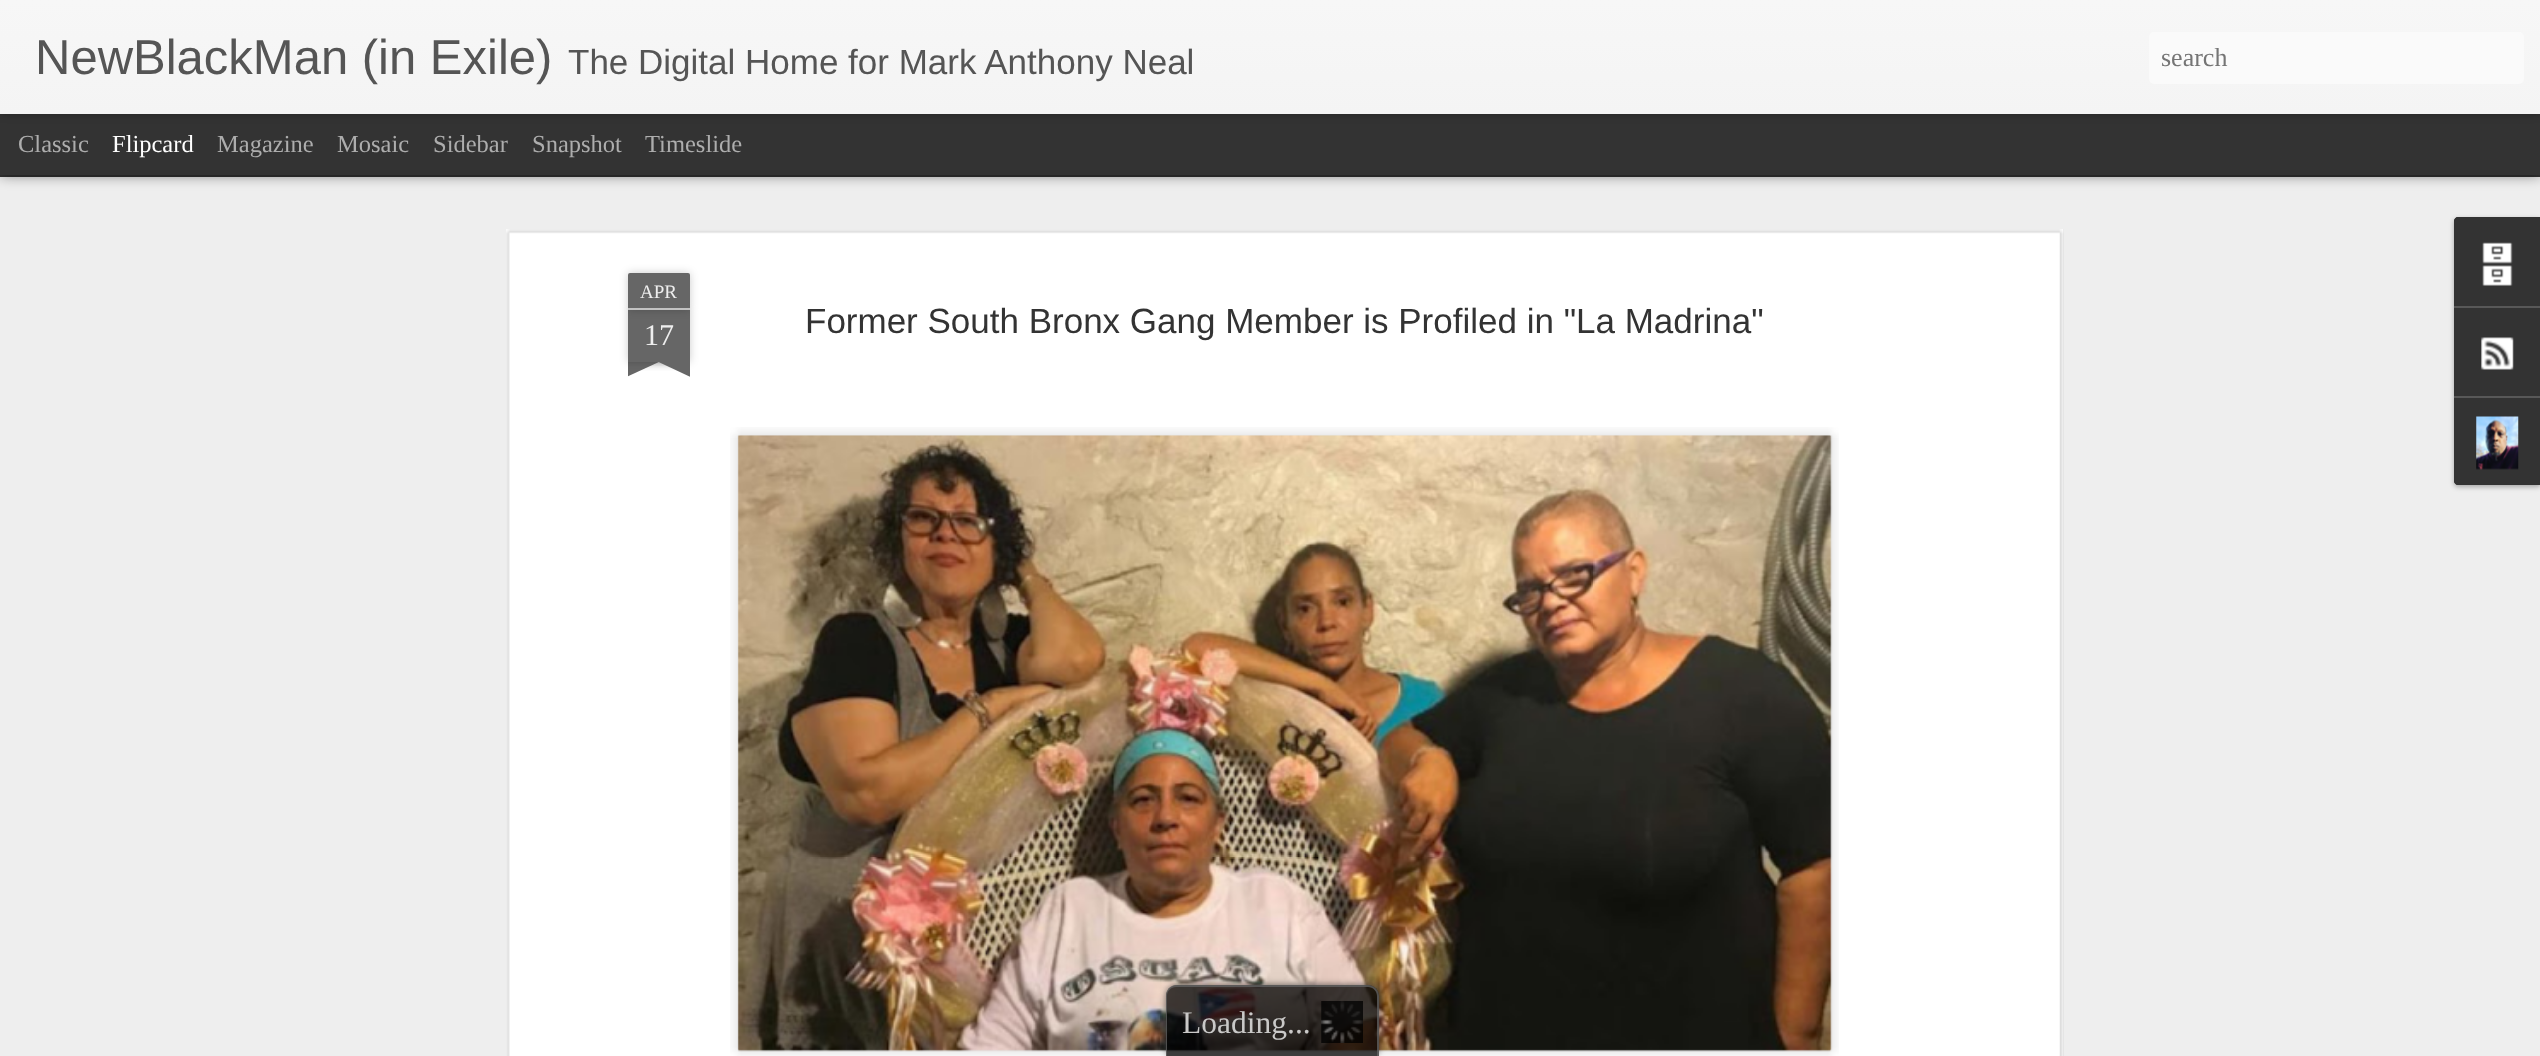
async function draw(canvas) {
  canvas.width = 2540;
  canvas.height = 1056;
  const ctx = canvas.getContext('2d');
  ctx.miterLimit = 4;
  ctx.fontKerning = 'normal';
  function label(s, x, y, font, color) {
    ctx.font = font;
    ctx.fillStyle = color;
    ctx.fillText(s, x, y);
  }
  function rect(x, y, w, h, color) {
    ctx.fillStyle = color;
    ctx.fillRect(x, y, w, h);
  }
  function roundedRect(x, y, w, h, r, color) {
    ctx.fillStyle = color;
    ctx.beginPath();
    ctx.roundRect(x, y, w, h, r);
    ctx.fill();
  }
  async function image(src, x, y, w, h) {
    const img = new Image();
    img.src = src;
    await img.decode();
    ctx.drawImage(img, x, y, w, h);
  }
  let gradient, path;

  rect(0, 0, 2540, 1056, '#333');
  rect(0, 177, 2540, 879, '#eee');
  ctx.fillStyle = '#00000080';
  ctx.filter = 'blur(7px)';
  ctx.beginPath();
  ctx.rect(0, 114, 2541, 61);
  ctx.fill();
  ctx.filter = 'none';
  rect(0, 114, 2540, 61, '#333');
  ctx.fillStyle = '#0000004d';
  ctx.filter = 'blur(4.5px)';
  ctx.beginPath();
  ctx.rect(0, 0, 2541, 114);
  ctx.fill();
  ctx.filter = 'none';
  gradient = ctx.createLinearGradient(0, 0, 0, 114);
  gradient.addColorStop(0, '#f7f7f7');
  gradient.addColorStop(1, '#f4f4f4');
  ctx.fillStyle = gradient;
  ctx.fillRect(0, 0, 2540, 114);
  label('NewBlackMan (in Exile)', 35, 74, '49px Liberation Sans', '#555');
  label('The Digital Home for Mark Anthony Neal', 568, 74, '35px Liberation Sans', '#555');
  roundedRect(2149, 32, 375, 52, 5, '#fafafa');
  label('search', 2161, 66, '26px Liberation Serif', '#757575');
  label('Classic', 18, 152, '24.5px Liberation Serif', '#adadad');
  label('Flipcard', 112, 152, '24.5px Liberation Serif', '#fff');
  label('Magazine', 217, 152, '24.5px Liberation Serif', '#adadad');
  label('Mosaic', 337, 152, '24.5px Liberation Serif', '#adadad');
  label('Sidebar', 433, 152, '24.5px Liberation Serif', '#adadad');
  label('Snapshot', 532, 152, '24.5px Liberation Serif', '#adadad');
  label('Timeslide', 645, 152, '24.5px Liberation Serif', '#adadad');
  rect(506, 229, 1557, 827, '#fff');
  await image('assets/img1.png', 506, 229, 1558, 827);
  ctx.fillStyle = '#00000033';
  ctx.filter = 'blur(4.5px)';
  ctx.beginPath();
  ctx.rect(628, 310, 62, 52);
  ctx.fill();
  ctx.filter = 'none';
  rect(628, 310, 62, 52, '#666');
  ctx.fillStyle = '#00000033';
  ctx.filter = 'blur(4.5px)';
  ctx.beginPath();
  ctx.roundRect(628, 273, 62, 37, 2);
  ctx.fill();
  ctx.filter = 'none';
  ctx.fillStyle = '#666';
  ctx.beginPath();
  ctx.roundRect(628, 273, 62, 37, [2, 2, 0, 0]);
  ctx.fill();
  rect(628, 308, 62, 2, '#c2c2c2');
  label('APR', 640, 298, '19px Liberation Serif', '#eee');
  label('17', 644, 345, '30px Liberation Serif', '#eee');
  ctx.save();
  ctx.beginPath();
  ctx.rect(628, 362, 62, 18);
  ctx.clip();
  ctx.fillStyle = '#00000033';
  ctx.filter = 'blur(4.5px)';
  ctx.beginPath();
  ctx.rect(613, 345, 87, 17);
  ctx.fill();
  ctx.filter = 'none';
  ctx.restore();
  ctx.save();
  ctx.beginPath();
  ctx.rect(628, 362, 62, 18);
  ctx.clip();
  ctx.fillStyle = '#666';
  path = new Path2D('M613 364L692 327L700 343L620 380Z');
  ctx.fill(path);
  ctx.restore();
  ctx.save();
  ctx.beginPath();
  ctx.rect(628, 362, 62, 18);
  ctx.clip();
  ctx.fillStyle = '#00000033';
  ctx.filter = 'blur(4.5px)';
  ctx.beginPath();
  ctx.rect(618, 345, 87, 17);
  ctx.fill();
  ctx.filter = 'none';
  ctx.restore();
  ctx.save();
  ctx.beginPath();
  ctx.rect(628, 362, 62, 18);
  ctx.clip();
  ctx.fillStyle = '#666';
  path = new Path2D('M626 327L705 364L697 380L618 343Z');
  ctx.fill(path);
  ctx.restore();
  label('Former South Bronx Gang Member is Profiled in "La Madrina"', 805, 333, '35px Liberation Sans', '#333');
  await image('assets/img2.png', 730, 427, 1109, 629);
  await image('assets/img3.png', 737, 435, 1096, 617);
  ctx.fillStyle = '#0000004d';
  ctx.filter = 'blur(2.5px)';
  ctx.beginPath();
  ctx.roundRect(2454, 219, 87, 268, 4);
  ctx.fill();
  ctx.filter = 'none';
  ctx.fillStyle = '#333';
  path = new Path2D('M2458 217H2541V485H2458C2456 485 2454 483 2454 481V221C2454 219 2456 217 2458 217Z');
  ctx.fill(path);
  path = new Path2D('M2458 217H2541V306H2454V221C2454 219 2456 217 2458 217Z');
  ctx.fill(path);
  await image('assets/img4.png', 2482, 242, 31, 44);
  rect(2454, 306, 86, 2, '#585858');
  await image('assets/img5.png', 2481, 337, 33, 33);
  ctx.fillStyle = '#333';
  path = new Path2D('M2454 396H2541V485H2458C2456 485 2454 483 2454 481Z');
  ctx.fill(path);
  rect(2454, 396, 86, 2, '#585858');
  await image('assets/img6.png', 2476, 416, 43, 54);
  ctx.save();
  path = new Path2D('M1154 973H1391V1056H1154ZM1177 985H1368C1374 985 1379 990 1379 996V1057H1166V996C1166 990 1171 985 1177 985Z');
  ctx.clip(path, 'evenodd');
  ctx.fillStyle = '#333333bf';
  ctx.filter = 'blur(3.5px)';
  ctx.beginPath();
  ctx.roundRect(1166, 985, 213, 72, 11);
  ctx.fill();
  ctx.filter = 'none';
  ctx.restore();
  ctx.fillStyle = '#000000bf';
  path = new Path2D('M1177 985H1368C1374 985 1379 990 1379 996V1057H1166V996C1166 990 1171 985 1177 985Z');
  ctx.fill(path);
  ctx.fillStyle = '#666666bf';
  path = new Path2D('M1176 985H1368C1374 985 1379 990 1379 996V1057H1166V996C1166 990 1170 985 1176 985ZM1176 987H1368C1373 987 1377 991 1377 996V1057H1167V996C1167 991 1171 987 1176 987Z');
  ctx.fill(path, 'evenodd');
  await image('assets/img7.png', 1321, 1001, 42, 42);
  label('Loading', 1182, 1033, '31.5px Liberation Serif', '#cac9c8');
  label('...', 1287, 1033, '31.5px Liberation Serif', '#cac9c8');
}

draw(document.querySelector('canvas'));
